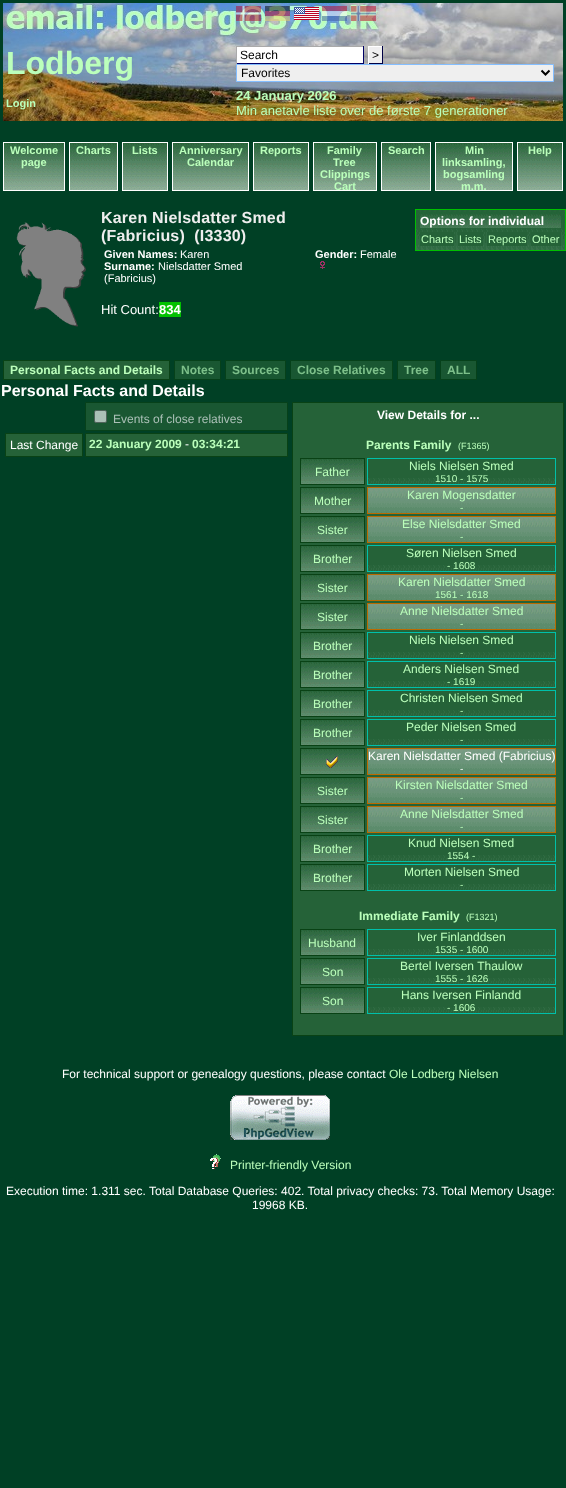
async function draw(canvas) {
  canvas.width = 566;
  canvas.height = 1488;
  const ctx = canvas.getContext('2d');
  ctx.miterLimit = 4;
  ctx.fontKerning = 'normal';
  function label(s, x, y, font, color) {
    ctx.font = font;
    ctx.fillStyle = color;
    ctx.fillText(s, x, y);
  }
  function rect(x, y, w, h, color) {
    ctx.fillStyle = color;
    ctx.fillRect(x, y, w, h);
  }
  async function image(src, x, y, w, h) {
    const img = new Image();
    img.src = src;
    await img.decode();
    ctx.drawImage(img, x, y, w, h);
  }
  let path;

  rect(0, 0, 566, 1488, '#004025');
  await image('assets/img1.png', 3, 3, 560, 118);
  await image('assets/img2.png', 236, 6, 25, 15);
  await image('assets/img3.png', 265, 6, 25, 15);
  await image('assets/img4.png', 294, 7, 25, 13);
  await image('assets/img5.png', 322, 6, 25, 15);
  await image('assets/img6.png', 351, 6, 25, 15);
  label('Lodberg', 6, 74, 'bold 32px Liberation Sans', '#bfb');
  rect(237, 47, 126, 16, '#fff');
  rect(236, 46, 128, 1, '#aaa');
  rect(363, 46, 1, 18, '#006');
  rect(236, 63, 128, 1, '#006');
  rect(236, 46, 1, 18, '#aaa');
  label('Search', 240, 59, '12px Liberation Sans', '#000');
  rect(369, 47, 13, 16, '#efefef');
  rect(368, 46, 15, 1, '#fff');
  rect(382, 46, 1, 18, '#004');
  rect(368, 63, 15, 1, '#004');
  rect(368, 46, 1, 18, '#fff');
  label('>', 372, 59, '12px Liberation Sans', '#000');
  ctx.fillStyle = '#efefef';
  ctx.beginPath();
  ctx.rect(236.5, 64.5, 317, 17);
  ctx.fill();
  ctx.strokeStyle = '#84beff';
  ctx.stroke();
  path = new Path2D('M541.5 70.5L545.5 74.5L549.5 70.5');
  ctx.strokeStyle = '#000';
  ctx.lineWidth = 2;
  ctx.stroke(path);
  label('Favorites', 241, 77, '12px Liberation Sans', '#000');
  label('Login', 6, 107, 'bold 11px Liberation Sans', '#bfb');
  label('24 January 2026', 236, 100, 'bold 13px Liberation Sans', '#bfb');
  label('Min anetavle liste over de første 7 generationer', 236, 115, '13px Liberation Sans', '#bfb');
  await image('assets/img7.png', 4, 143, 60, 47);
  ctx.strokeStyle = '#fff';
  ctx.lineWidth = 1;
  ctx.strokeRect(3.5, 142.5, 61, 48);
  label('Welcome', 10, 154, 'bold 11px Liberation Sans', '#bfb');
  label('page', 21, 166, 'bold 11px Liberation Sans', '#bfb');
  await image('assets/img8.png', 70, 143, 47, 47);
  ctx.strokeRect(69.5, 142.5, 48, 48);
  label('Charts', 76, 154, 'bold 11px Liberation Sans', '#bfb');
  await image('assets/img9.png', 123, 143, 44, 47);
  ctx.strokeRect(122.5, 142.5, 45, 48);
  label('Lists', 132, 154, 'bold 11px Liberation Sans', '#bfb');
  await image('assets/img10.png', 173, 143, 75, 47);
  ctx.strokeRect(172.5, 142.5, 76, 48);
  label('Anniversary', 179, 154, 'bold 11px Liberation Sans', '#bfb');
  label('Calendar', 187, 166, 'bold 11px Liberation Sans', '#bfb');
  await image('assets/img11.png', 254, 143, 54, 47);
  ctx.strokeRect(253.5, 142.5, 55, 48);
  label('Reports', 260, 154, 'bold 11px Liberation Sans', '#bfb');
  await image('assets/img12.png', 314, 143, 62, 47);
  ctx.strokeRect(313.5, 142.5, 63, 48);
  label('Family', 327, 154, 'bold 11px Liberation Sans', '#bfb');
  label('Tree', 333, 166, 'bold 11px Liberation Sans', '#bfb');
  label('Clippings', 320, 178, 'bold 11px Liberation Sans', '#bfb');
  label('Cart', 334, 190, 'bold 11px Liberation Sans', '#bfb');
  await image('assets/img13.png', 382, 143, 48, 47);
  ctx.strokeRect(381.5, 142.5, 49, 48);
  label('Search', 388, 154, 'bold 11px Liberation Sans', '#bfb');
  await image('assets/img14.png', 436, 143, 76, 47);
  ctx.strokeRect(435.5, 142.5, 77, 48);
  label('Min', 465, 154, 'bold 11px Liberation Sans', '#bfb');
  label('linksamling,', 442, 166, 'bold 11px Liberation Sans', '#bfb');
  label('bogsamling', 443, 178, 'bold 11px Liberation Sans', '#bfb');
  label('m.m.', 461, 190, 'bold 11px Liberation Sans', '#bfb');
  await image('assets/img9.png', 518, 143, 44, 47);
  ctx.strokeRect(517.5, 142.5, 45, 48);
  label('Help', 528, 154, 'bold 11px Liberation Sans', '#bfb');
  await image('assets/img15.png', 16, 222, 70, 105);
  ctx.letterSpacing = '0.2px';
  label('Karen Nielsdatter Smed', 101, 223, 'bold 16px Liberation Sans', '#eee');
  label('(Fabricius)  (I3330)', 101, 241, 'bold 16px Liberation Sans', '#eee');
  ctx.letterSpacing = '0px';
  label('Given Names:', 104, 258, 'bold 11px Liberation Sans', '#fff');
  label('Karen', 180, 258, '11px Liberation Sans', '#fff');
  label('Surname:', 104, 270, 'bold 11px Liberation Sans', '#fff');
  label('Nielsdatter Smed', 158, 270, '11px Liberation Sans', '#fff');
  label('(Fabricius)', 104, 282, '11px Liberation Sans', '#fff');
  label('Gender:', 315, 258, 'bold 11px Liberation Sans', '#fff');
  label('Female', 360, 258, '11px Liberation Sans', '#fff');
  await image('assets/img16.png', 320, 261, 5, 8);
  label('Hit Count:', 101, 314, '13px Liberation Sans', '#fff');
  rect(159, 302, 22, 15, '#01c100');
  label('834', 159, 314, 'bold 13px Liberation Sans', '#fff');
  await image('assets/img17.png', 416, 210, 149, 40);
  ctx.strokeStyle = '#00c000';
  ctx.strokeRect(415.5, 209.5, 150, 41);
  await image('assets/img18.png', 420, 214, 141, 14);
  label('Options for individual', 420, 225, 'bold 12px Liberation Sans', '#fff');
  rect(420, 232, 34, 14, '#256238');
  label('Charts', 421, 243, '11px Liberation Sans', '#bfb');
  rect(458, 232, 25, 14, '#256238');
  label('Lists', 459, 243, '11px Liberation Sans', '#bfb');
  rect(487, 232, 40, 14, '#256238');
  label('Reports', 488, 243, '11px Liberation Sans', '#bfb');
  rect(531, 232, 30, 14, '#256238');
  label('Other', 532, 243, '11px Liberation Sans', '#bfb');
  ctx.fillStyle = '#256238';
  ctx.beginPath();
  ctx.rect(3.5, 360.5, 166, 19);
  ctx.fill();
  ctx.strokeStyle = '#094215';
  ctx.stroke();
  label('Personal Facts and Details', 10, 374, 'bold 12px Liberation Sans', '#bfb');
  ctx.fillStyle = '#195732';
  ctx.beginPath();
  ctx.rect(174.5, 360.5, 46, 19);
  ctx.fill();
  ctx.strokeStyle = '#06411a';
  ctx.stroke();
  label('Notes', 181, 374, 'bold 12px Liberation Sans', '#7dc08a');
  ctx.fillStyle = '#195732';
  ctx.beginPath();
  ctx.rect(225.5, 360.5, 60, 19);
  ctx.fill();
  ctx.stroke();
  label('Sources', 232, 374, 'bold 12px Liberation Sans', '#7dc08a');
  ctx.fillStyle = '#195732';
  ctx.beginPath();
  ctx.rect(290.5, 360.5, 102, 19);
  ctx.fill();
  ctx.stroke();
  label('Close Relatives', 297, 374, 'bold 12px Liberation Sans', '#7dc08a');
  ctx.fillStyle = '#195732';
  ctx.beginPath();
  ctx.rect(397.5, 360.5, 38, 19);
  ctx.fill();
  ctx.stroke();
  label('Tree', 404, 374, 'bold 12px Liberation Sans', '#7dc08a');
  ctx.fillStyle = '#195732';
  ctx.beginPath();
  ctx.rect(440.5, 360.5, 36, 19);
  ctx.fill();
  ctx.stroke();
  label('ALL', 447, 374, 'bold 12px Liberation Sans', '#7dc08a');
  label('Personal Facts and Details', 1, 396, 'bold 16px Liberation Sans', '#fff');
  ctx.fillStyle = '#195732';
  ctx.beginPath();
  ctx.rect(85.5, 402.5, 202, 28);
  ctx.fill();
  ctx.stroke();
  ctx.fillStyle = '#abc0b7';
  ctx.beginPath();
  ctx.roundRect(94.5, 410.5, 12, 12, 1.5);
  ctx.fill();
  ctx.strokeStyle = '#4f645b';
  ctx.stroke();
  label('Events of close relatives', 113, 423, '12px Liberation Sans', '#abc0b7');
  ctx.fillStyle = '#256238';
  ctx.beginPath();
  ctx.rect(5.5, 433.5, 77, 23);
  ctx.fill();
  ctx.strokeStyle = '#094215';
  ctx.stroke();
  label('Last Change', 10, 449, '12px Liberation Sans', '#fff');
  ctx.fillStyle = '#256238';
  ctx.beginPath();
  ctx.rect(85.5, 433.5, 202, 23);
  ctx.fill();
  ctx.stroke();
  label('22 January 2009', 89, 448, 'bold 12px Liberation Sans', '#bfb');
  label('-', 185, 448, '12px Liberation Sans', '#fff');
  label('03:34:21', 192, 448, 'bold 12px Liberation Sans', '#bfb');
  ctx.fillStyle = '#256238';
  ctx.beginPath();
  ctx.rect(292.5, 402.5, 271, 633);
  ctx.fill();
  ctx.stroke();
  label('View Details for ...', 377, 419, 'bold 12px Liberation Sans', '#fff');
  label('Parents Family', 366, 449, 'bold 12px Liberation Sans', '#bfb');
  label('(F1365)', 458, 449, '9px Liberation Sans', '#bfb');
  await image('assets/img19.png', 301, 459, 63, 25);
  ctx.strokeRect(300.5, 458.5, 64, 26);
  label('Father', 315, 476, '12px Liberation Sans', '#bfb');
  await image('assets/img20.png', 368, 478, 187, 6);
  ctx.strokeStyle = '#00c0aa';
  ctx.strokeRect(367.5, 458.5, 188, 26);
  label('Niels Nielsen Smed', 409, 470, '12px Liberation Sans', '#bfb');
  label('1510 - 1575', 435, 482, '10px Liberation Sans', '#bfb');
  await image('assets/img19.png', 301, 488, 63, 25);
  ctx.strokeStyle = '#094215';
  ctx.strokeRect(300.5, 487.5, 64, 26);
  label('Mother', 314, 505, '12px Liberation Sans', '#bfb');
  await image('assets/img21.png', 368, 488, 187, 25);
  ctx.strokeStyle = '#bb6a00';
  ctx.strokeRect(367.5, 487.5, 188, 26);
  label('Karen Mogensdatter', 407, 499, '12px Liberation Sans', '#bfb');
  label('-', 460, 511, '10px Liberation Sans', '#bfb');
  await image('assets/img19.png', 301, 517, 63, 25);
  ctx.strokeStyle = '#094215';
  ctx.strokeRect(300.5, 516.5, 64, 26);
  label('Sister', 317, 534, '12px Liberation Sans', '#bfb');
  await image('assets/img21.png', 368, 517, 187, 25);
  ctx.strokeStyle = '#bb6a00';
  ctx.strokeRect(367.5, 516.5, 188, 26);
  label('Else Nielsdatter Smed', 402, 528, '12px Liberation Sans', '#bfb');
  label('-', 460, 540, '10px Liberation Sans', '#bfb');
  await image('assets/img19.png', 301, 546, 63, 25);
  ctx.strokeStyle = '#094215';
  ctx.strokeRect(300.5, 545.5, 64, 26);
  label('Brother', 313, 563, '12px Liberation Sans', '#bfb');
  await image('assets/img20.png', 368, 565, 187, 6);
  ctx.strokeStyle = '#00c0aa';
  ctx.strokeRect(367.5, 545.5, 188, 26);
  label('Søren Nielsen Smed', 406, 557, '12px Liberation Sans', '#bfb');
  label('- 1608', 447, 569, '10px Liberation Sans', '#bfb');
  await image('assets/img19.png', 301, 575, 63, 25);
  ctx.strokeStyle = '#094215';
  ctx.strokeRect(300.5, 574.5, 64, 26);
  label('Sister', 317, 592, '12px Liberation Sans', '#bfb');
  await image('assets/img21.png', 368, 575, 187, 25);
  ctx.strokeStyle = '#bb6a00';
  ctx.strokeRect(367.5, 574.5, 188, 26);
  label('Karen Nielsdatter Smed', 398, 586, '12px Liberation Sans', '#bfb');
  label('1561 - 1618', 435, 598, '10px Liberation Sans', '#bfb');
  await image('assets/img19.png', 301, 604, 63, 25);
  ctx.strokeStyle = '#094215';
  ctx.strokeRect(300.5, 603.5, 64, 26);
  label('Sister', 317, 621, '12px Liberation Sans', '#bfb');
  await image('assets/img21.png', 368, 604, 187, 25);
  ctx.strokeStyle = '#bb6a00';
  ctx.strokeRect(367.5, 603.5, 188, 26);
  label('Anne Nielsdatter Smed', 400, 615, '12px Liberation Sans', '#bfb');
  label('-', 460, 627, '10px Liberation Sans', '#bfb');
  await image('assets/img19.png', 301, 633, 63, 25);
  ctx.strokeStyle = '#094215';
  ctx.strokeRect(300.5, 632.5, 64, 26);
  label('Brother', 313, 650, '12px Liberation Sans', '#bfb');
  await image('assets/img20.png', 368, 652, 187, 6);
  ctx.strokeStyle = '#00c0aa';
  ctx.strokeRect(367.5, 632.5, 188, 26);
  label('Niels Nielsen Smed', 409, 644, '12px Liberation Sans', '#bfb');
  label('-', 460, 656, '10px Liberation Sans', '#bfb');
  await image('assets/img19.png', 301, 662, 63, 25);
  ctx.strokeStyle = '#094215';
  ctx.strokeRect(300.5, 661.5, 64, 26);
  label('Brother', 313, 679, '12px Liberation Sans', '#bfb');
  await image('assets/img20.png', 368, 681, 187, 6);
  ctx.strokeStyle = '#00c0aa';
  ctx.strokeRect(367.5, 661.5, 188, 26);
  label('Anders Nielsen Smed', 403, 673, '12px Liberation Sans', '#bfb');
  label('- 1619', 447, 685, '10px Liberation Sans', '#bfb');
  await image('assets/img19.png', 301, 691, 63, 25);
  ctx.strokeStyle = '#094215';
  ctx.strokeRect(300.5, 690.5, 64, 26);
  label('Brother', 313, 708, '12px Liberation Sans', '#bfb');
  await image('assets/img20.png', 368, 710, 187, 6);
  ctx.strokeStyle = '#00c0aa';
  ctx.strokeRect(367.5, 690.5, 188, 26);
  label('Christen Nielsen Smed', 400, 702, '12px Liberation Sans', '#bfb');
  label('-', 460, 714, '10px Liberation Sans', '#bfb');
  await image('assets/img19.png', 301, 720, 63, 25);
  ctx.strokeStyle = '#094215';
  ctx.strokeRect(300.5, 719.5, 64, 26);
  label('Brother', 313, 737, '12px Liberation Sans', '#bfb');
  await image('assets/img20.png', 368, 739, 187, 6);
  ctx.strokeStyle = '#00c0aa';
  ctx.strokeRect(367.5, 719.5, 188, 26);
  label('Peder Nielsen Smed', 406, 731, '12px Liberation Sans', '#bfb');
  label('-', 460, 743, '10px Liberation Sans', '#bfb');
  await image('assets/img19.png', 301, 749, 63, 25);
  ctx.strokeStyle = '#094215';
  ctx.strokeRect(300.5, 748.5, 64, 26);
  await image('assets/img22.png', 326, 756, 12, 12);
  await image('assets/img21.png', 368, 749, 187, 25);
  ctx.strokeStyle = '#bb6a00';
  ctx.strokeRect(367.5, 748.5, 188, 26);
  label('Karen Nielsdatter Smed (Fabricius)', 368, 760, '12px Liberation Sans', '#fff');
  label('-', 460, 772, '10px Liberation Sans', '#fff');
  await image('assets/img19.png', 301, 778, 63, 25);
  ctx.strokeStyle = '#094215';
  ctx.strokeRect(300.5, 777.5, 64, 26);
  label('Sister', 317, 795, '12px Liberation Sans', '#bfb');
  await image('assets/img21.png', 368, 778, 187, 25);
  ctx.strokeStyle = '#bb6a00';
  ctx.strokeRect(367.5, 777.5, 188, 26);
  label('Kirsten Nielsdatter Smed', 395, 789, '12px Liberation Sans', '#bfb');
  label('-', 460, 801, '10px Liberation Sans', '#bfb');
  await image('assets/img19.png', 301, 807, 63, 25);
  ctx.strokeStyle = '#094215';
  ctx.strokeRect(300.5, 806.5, 64, 26);
  label('Sister', 317, 824, '12px Liberation Sans', '#bfb');
  await image('assets/img21.png', 368, 807, 187, 25);
  ctx.strokeStyle = '#bb6a00';
  ctx.strokeRect(367.5, 806.5, 188, 26);
  label('Anne Nielsdatter Smed', 400, 818, '12px Liberation Sans', '#bfb');
  label('-', 460, 830, '10px Liberation Sans', '#bfb');
  await image('assets/img19.png', 301, 836, 63, 25);
  ctx.strokeStyle = '#094215';
  ctx.strokeRect(300.5, 835.5, 64, 26);
  label('Brother', 313, 853, '12px Liberation Sans', '#bfb');
  await image('assets/img20.png', 368, 855, 187, 6);
  ctx.strokeStyle = '#00c0aa';
  ctx.strokeRect(367.5, 835.5, 188, 26);
  label('Knud Nielsen Smed', 408, 847, '12px Liberation Sans', '#bfb');
  label('1554 -', 447, 859, '10px Liberation Sans', '#bfb');
  await image('assets/img19.png', 301, 865, 63, 25);
  ctx.strokeStyle = '#094215';
  ctx.strokeRect(300.5, 864.5, 64, 26);
  label('Brother', 313, 882, '12px Liberation Sans', '#bfb');
  await image('assets/img20.png', 368, 884, 187, 6);
  ctx.strokeStyle = '#00c0aa';
  ctx.strokeRect(367.5, 864.5, 188, 26);
  label('Morten Nielsen Smed', 404, 876, '12px Liberation Sans', '#bfb');
  label('-', 460, 888, '10px Liberation Sans', '#bfb');
  label('Immediate Family', 359, 920, 'bold 12px Liberation Sans', '#bfb');
  label('(F1321)', 466, 920, '9px Liberation Sans', '#bfb');
  await image('assets/img19.png', 301, 930, 63, 25);
  ctx.strokeStyle = '#094215';
  ctx.strokeRect(300.5, 929.5, 64, 26);
  label('Husband', 308, 947, '12px Liberation Sans', '#bfb');
  await image('assets/img20.png', 368, 949, 187, 6);
  ctx.strokeStyle = '#00c0aa';
  ctx.strokeRect(367.5, 929.5, 188, 26);
  label('Iver Finlanddsen', 417, 941, '12px Liberation Sans', '#bfb');
  label('1535 - 1600', 435, 953, '10px Liberation Sans', '#bfb');
  await image('assets/img19.png', 301, 959, 63, 25);
  ctx.strokeStyle = '#094215';
  ctx.strokeRect(300.5, 958.5, 64, 26);
  label('Son', 322, 976, '12px Liberation Sans', '#bfb');
  await image('assets/img20.png', 368, 978, 187, 6);
  ctx.strokeStyle = '#00c0aa';
  ctx.strokeRect(367.5, 958.5, 188, 26);
  label('Bertel Iversen Thaulow', 400, 970, '12px Liberation Sans', '#bfb');
  label('1555 - 1626', 435, 982, '10px Liberation Sans', '#bfb');
  await image('assets/img19.png', 301, 988, 63, 25);
  ctx.strokeStyle = '#094215';
  ctx.strokeRect(300.5, 987.5, 64, 26);
  label('Son', 322, 1005, '12px Liberation Sans', '#bfb');
  await image('assets/img20.png', 368, 1007, 187, 6);
  ctx.strokeStyle = '#00c0aa';
  ctx.strokeRect(367.5, 987.5, 188, 26);
  label('Hans Iversen Finlandd', 401, 999, '12px Liberation Sans', '#bfb');
  label('- 1606', 447, 1011, '10px Liberation Sans', '#bfb');
  label('For technical support or genealogy questions, please contact', 62, 1078, '12px Liberation Sans', '#fff');
  label('Ole Lodberg Nielsen', 389, 1078, '12px Liberation Sans', '#bfb');
  await image('assets/img23.png', 230, 1095, 100, 45);
  await image('assets/img24.png', 210, 1154, 11, 15);
  label('Printer-friendly Version', 230, 1169, '12px Liberation Sans', '#bfb');
  label('Execution time: 1.311 sec. Total Database Queries: 402. Total privacy checks: 73. Total Memory Usage:', 6, 1195, '12px Liberation Sans', '#fff');
  label('19968 KB.', 252, 1209, '12px Liberation Sans', '#fff');
}

draw(document.querySelector('canvas'));
